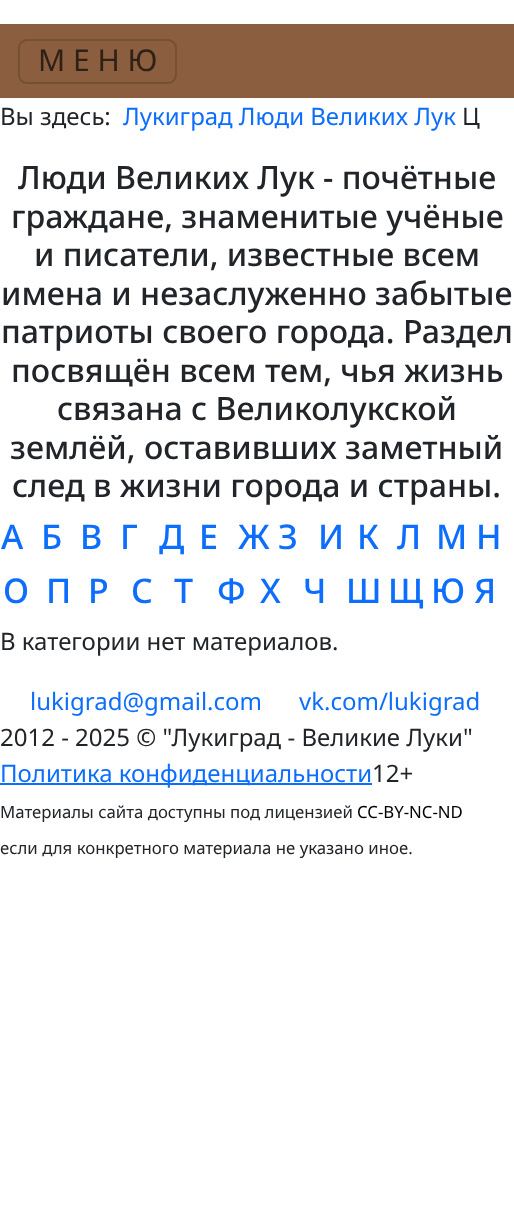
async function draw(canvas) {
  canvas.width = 514;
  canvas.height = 1211;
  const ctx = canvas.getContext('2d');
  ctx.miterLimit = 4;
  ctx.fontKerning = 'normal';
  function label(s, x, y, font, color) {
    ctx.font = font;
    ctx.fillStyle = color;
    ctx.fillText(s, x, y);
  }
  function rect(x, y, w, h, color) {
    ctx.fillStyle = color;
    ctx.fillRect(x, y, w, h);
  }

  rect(0, 0, 514, 1211, '#fff');
  rect(0, 24, 514, 74, '#8a5e3e');
  ctx.beginPath();
  ctx.roundRect(19, 40, 157, 43, 8);
  ctx.strokeStyle = '#755035';
  ctx.lineWidth = 2;
  ctx.stroke();
  label('М Е Н Ю', 38, 71, '30px Noto Sans', '#302116');
  label('Вы здесь:', 0, 125, '24px Noto Sans', '#212529');
  label('Лукиград Люди Великих Лук', 123, 125, '24px Noto Sans', '#0d6efd');
  label('Ц', 462, 125, '24px Noto Sans', '#212529');
  label('Люди Великих Лук - почётные', 18, 189, '500 32.1px Noto Sans', '#212529');
  label('граждане, знаменитые учёные', 11, 228, '500 32.1px Noto Sans', '#212529');
  label('и писатели, известные всем', 34, 266, '500 32.1px Noto Sans', '#212529');
  label('имена и незаслуженно забытые', 1, 305, '500 32.1px Noto Sans', '#212529');
  label('патриоты своего города.', 1, 343, '500 32.1px Noto Sans', '#212529');
  label('Раздел', 403, 343, '500 32.1px Noto Sans', '#212529');
  label('посвящён всем тем, чья жизнь', 11, 382, '500 32.1px Noto Sans', '#212529');
  label('связана с Великолукской', 57, 420, '500 32.1px Noto Sans', '#212529');
  label('землёй, оставивших заметный', 10, 459, '500 32.1px Noto Sans', '#212529');
  label('след в жизни города и страны.', 12, 497, '500 32.1px Noto Sans', '#212529');
  label('А', 1, 549, '500 34px Noto Sans', '#0d6efd');
  label('Б', 41, 549, '500 34px Noto Sans', '#0d6efd');
  label('В', 80, 549, '500 34px Noto Sans', '#0d6efd');
  label('Г', 120, 549, '500 34px Noto Sans', '#0d6efd');
  label('Д', 159, 549, '500 34px Noto Sans', '#0d6efd');
  label('Е', 199, 549, '500 34px Noto Sans', '#0d6efd');
  label('Ж', 238, 549, '500 34px Noto Sans', '#0d6efd');
  label('З', 278, 549, '500 34px Noto Sans', '#0d6efd');
  label('И', 318, 549, '500 34px Noto Sans', '#0d6efd');
  label('К', 357, 549, '500 34px Noto Sans', '#0d6efd');
  label('Л', 397, 549, '500 34px Noto Sans', '#0d6efd');
  label('М', 436, 549, '500 34px Noto Sans', '#0d6efd');
  label('Н', 476, 549, '500 34px Noto Sans', '#0d6efd');
  label('О', 3, 603, '500 34px Noto Sans', '#0d6efd');
  label('П', 46, 603, '500 34px Noto Sans', '#0d6efd');
  label('Р', 88, 603, '500 34px Noto Sans', '#0d6efd');
  label('С', 131, 603, '500 34px Noto Sans', '#0d6efd');
  label('Т', 174, 603, '500 34px Noto Sans', '#0d6efd');
  label('Ф', 217, 603, '500 34px Noto Sans', '#0d6efd');
  label('Х', 260, 603, '500 34px Noto Sans', '#0d6efd');
  label('Ч', 303, 603, '500 34px Noto Sans', '#0d6efd');
  label('Ш', 346, 603, '500 34px Noto Sans', '#0d6efd');
  label('Щ', 388, 603, '500 34px Noto Sans', '#0d6efd');
  label('Ю', 431, 603, '500 34px Noto Sans', '#0d6efd');
  label('Я', 474, 603, '500 34px Noto Sans', '#0d6efd');
  label('В категории нет материалов.', 0, 650, '24px Noto Sans', '#212529');
  label('lukigrad@gmail.com', 30, 710, '24px Noto Sans', '#0d6efd');
  label('vk.com/lukigrad', 299, 710, '24px Noto Sans', '#0d6efd');
  label('2012 - 2025 © "Лукиград - Великие Луки"', 0, 746, '24px Noto Sans', '#212529');
  rect(0, 783, 372, 2, '#0d6efd');
  label('Политика конфиденциальности', 0, 782, '24px Noto Sans', '#0d6efd');
  label('12+', 372, 782, '24px Noto Sans', '#212529');
  label('Материалы сайта доступны под лицензией', 0, 818, '16.8px Noto Sans', '#212529');
  label('CC-BY-NC-ND', 357, 818, '16.8px Noto Sans', '#000');
  label('если для конкретного материала не указано иное.', 0, 854, '16.8px Noto Sans', '#212529');
}

draw(document.querySelector('canvas'));
